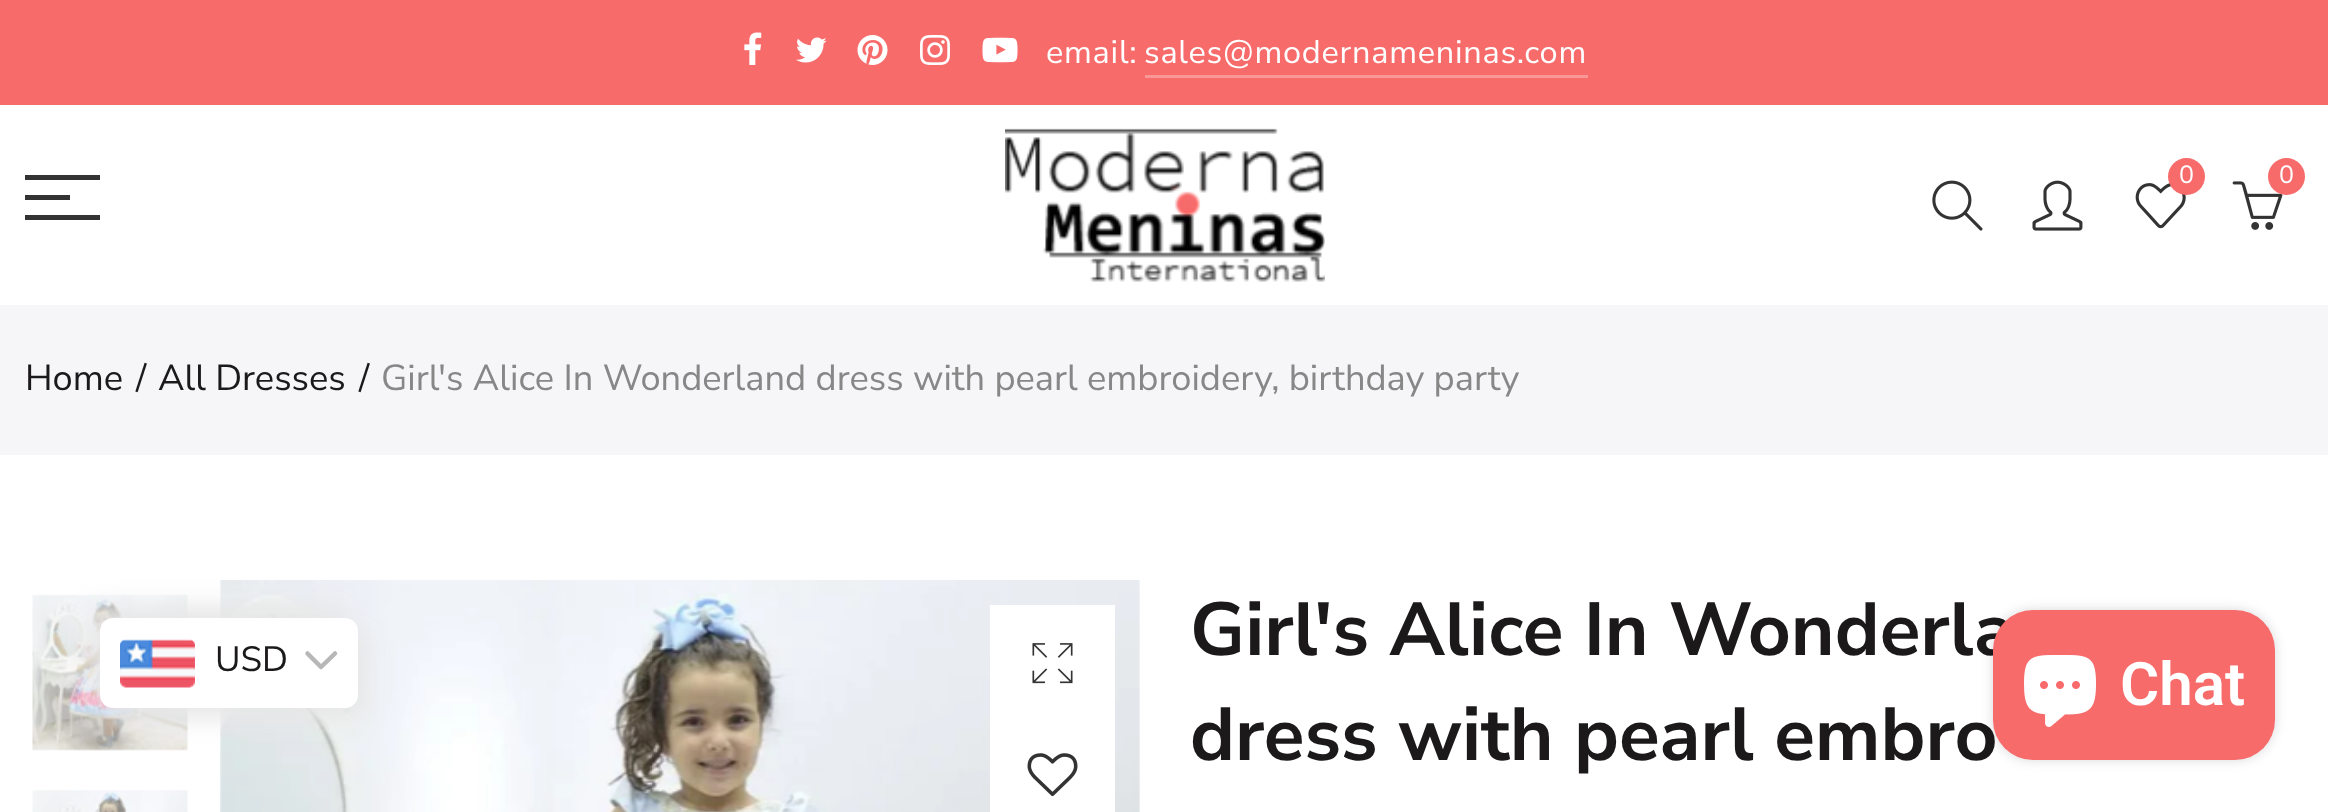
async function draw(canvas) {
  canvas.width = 2328;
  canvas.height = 812;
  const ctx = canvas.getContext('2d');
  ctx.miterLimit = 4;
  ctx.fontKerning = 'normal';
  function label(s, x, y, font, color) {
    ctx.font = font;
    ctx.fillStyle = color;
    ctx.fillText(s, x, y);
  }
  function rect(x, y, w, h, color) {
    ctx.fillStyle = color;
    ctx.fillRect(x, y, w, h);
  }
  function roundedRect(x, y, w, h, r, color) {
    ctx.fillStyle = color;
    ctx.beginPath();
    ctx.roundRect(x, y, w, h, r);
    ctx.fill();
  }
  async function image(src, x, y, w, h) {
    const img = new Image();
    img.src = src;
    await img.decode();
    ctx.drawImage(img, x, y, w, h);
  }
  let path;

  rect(0, 0, 2328, 812, '#fff');
  rect(0, 0, 2328, 105, '#f76b6a');
  await image('assets/img1.png', 744, 32, 18, 33);
  await image('assets/img2.png', 796, 37, 31, 26);
  await image('assets/img3.png', 857, 35, 31, 30);
  await image('assets/img4.png', 920, 35, 30, 30);
  await image('assets/img5.png', 982, 37, 36, 26);
  ctx.letterSpacing = '0.75px';
  label('email:', 1046, 63, '32.5px Nunito Sans', '#fff');
  label('sales@modernameninas.com', 1144, 63, '32.5px Nunito Sans', '#fff');
  rect(1145, 75, 443, 3, '#f99797');
  rect(25, 175, 75, 5, '#333');
  rect(25, 195, 45, 5, '#333');
  rect(25, 215, 75, 5, '#333');
  await image('assets/img6.png', 1005, 128, 320, 154);
  await image('assets/img7.png', 2135, 183, 51, 46);
  ctx.fillStyle = '#f76b6a';
  ctx.beginPath();
  ctx.arc(2186.5, 176.5, 18.5, 0, 2 * Math.PI);
  ctx.fill();
  ctx.letterSpacing = '0px';
  label('0', 2179, 183, '25px Nunito Sans', '#fff');
  await image('assets/img8.png', 2232, 181, 51, 49);
  ctx.fillStyle = '#f76b6a';
  ctx.beginPath();
  ctx.arc(2286.5, 176.5, 18.5, 0, 2 * Math.PI);
  ctx.fill();
  label('0', 2279, 183, '25px Nunito Sans', '#fff');
  await image('assets/img9.png', 1932, 180, 51, 51);
  await image('assets/img10.png', 2032, 180, 51, 51);
  rect(0, 305, 2328, 150, '#f6f6f8');
  label('Home', 25, 390, '36.25px Nunito Sans', '#1b1919');
  label('/', 136, 390, '36.25px Nunito Sans', '#1b1919');
  label('All Dresses', 158, 390, '36.25px Nunito Sans', '#1b1919');
  label('/', 359, 390, '36.25px Nunito Sans', '#1b1919');
  label('Girl\'s Alice In Wonderland dress with pearl embroidery, birthday party', 381, 390, '36.25px Nunito Sans', '#878787');
  await image('assets/img11.png', 32, 594, 156, 157);
  await image('assets/img12.png', 32, 790, 156, 22);
  await image('assets/img13.png', 220, 580, 920, 232);
  rect(990, 605, 125, 207, '#fff');
  await image('assets/img14.png', 1032, 643, 41, 41);
  await image('assets/img15.png', 1027, 753, 51, 44);
  label('Girl\'s Alice In Wonderla', 1190, 655, 'bold 75px Nunito Sans', '#1b1919');
  label('dress with pearl embro', 1190, 760, 'bold 75px Nunito Sans', '#1b1919');
  ctx.fillStyle = '#e8e8e8';
  ctx.filter = 'blur(12.5px)';
  ctx.beginPath();
  ctx.roundRect(88, 605, 257, 90, 13);
  ctx.fill();
  ctx.filter = 'none';
  ctx.filter = 'blur(12.5px)';
  ctx.beginPath();
  ctx.roundRect(113, 630, 257, 90, 13);
  ctx.fill();
  ctx.filter = 'none';
  roundedRect(100, 618, 258, 90, 13, '#fff');
  await image('assets/img16.png', 120, 639, 75, 49);
  label('USD', 215, 671, '35px Nunito Sans', '#1b1919');
  path = new Path2D('M307.5 653.5L321 667L335 653.5');
  ctx.strokeStyle = '#b7b7b7';
  ctx.lineWidth = 4.5;
  ctx.lineCap = 'round';
  ctx.lineJoin = 'round';
  ctx.stroke(path);
  ctx.fillStyle = '#00000026';
  ctx.filter = 'blur(6px)';
  ctx.beginPath();
  ctx.roundRect(1993, 610, 282, 150, 40);
  ctx.fill();
  ctx.filter = 'none';
  roundedRect(1993, 610, 282, 150, 40, '#f76b6a');
  await image('assets/img17.png', 2024, 655, 72, 72);
  label('Chat', 2120, 705, '600 60px Roboto', '#fff');
}

draw(document.querySelector('canvas'));
